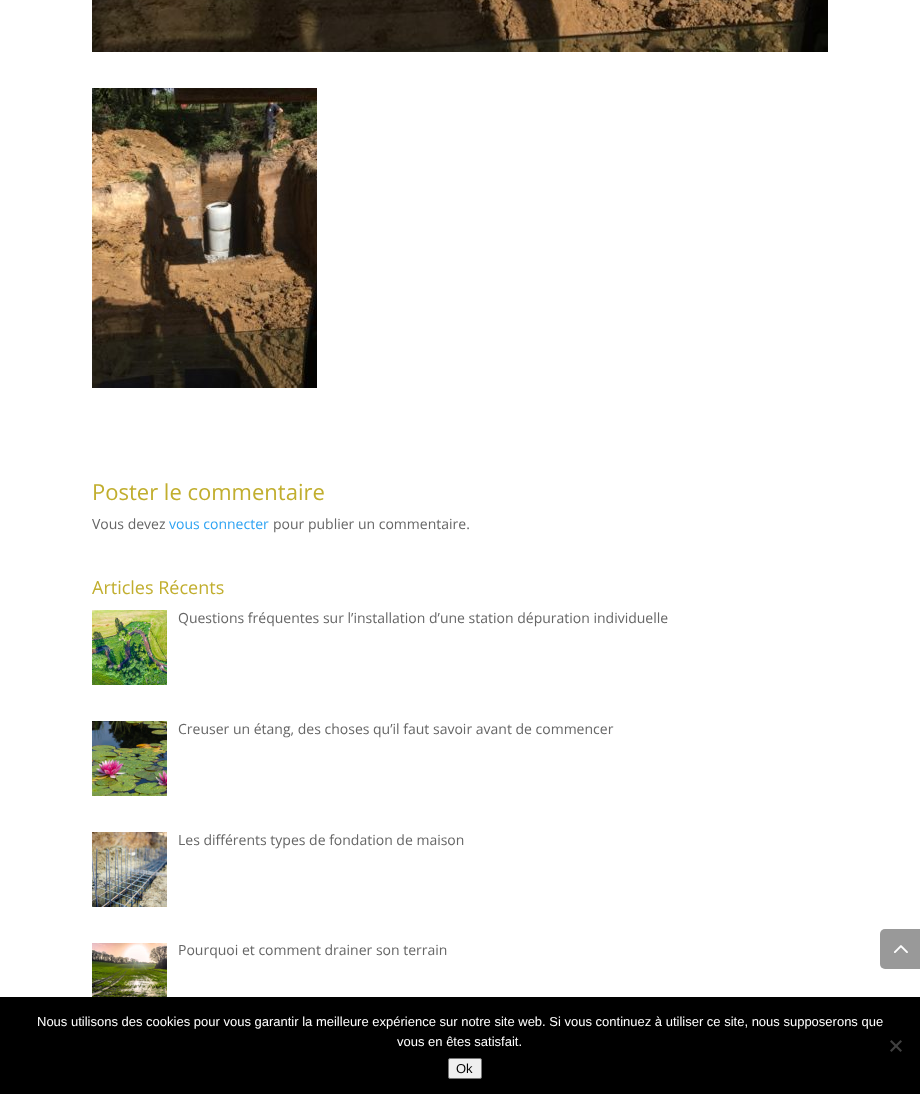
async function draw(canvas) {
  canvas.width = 920;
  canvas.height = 1094;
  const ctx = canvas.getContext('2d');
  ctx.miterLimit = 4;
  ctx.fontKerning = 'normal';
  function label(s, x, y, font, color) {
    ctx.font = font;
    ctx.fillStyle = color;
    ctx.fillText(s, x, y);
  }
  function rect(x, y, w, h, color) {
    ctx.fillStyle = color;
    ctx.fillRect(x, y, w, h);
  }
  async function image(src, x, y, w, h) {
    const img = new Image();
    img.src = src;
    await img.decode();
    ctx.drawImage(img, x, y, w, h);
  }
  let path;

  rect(0, 0, 920, 1094, '#fff');
  await image('assets/img1.png', 92, 0, 736, 52);
  await image('assets/img2.png', 92, 88, 225, 300);
  label('Poster le commentaire', 92, 500, '22px Open Sans', '#c1ae2e');
  label('Vous devez', 92, 529, '14px Open Sans', '#666');
  label('vous connecter', 169, 529, '14px Open Sans', '#2ea3f2');
  label('pour publier un commentaire.', 273, 529, '14px Open Sans', '#666');
  label('Articles Récents', 92, 594, '18px Open Sans', '#c1ae2e');
  await image('assets/img3.png', 92, 610, 75, 75);
  label('Questions fréquentes sur l’installation d’une station dépuration individuelle', 178, 623, '14px Open Sans', '#666');
  await image('assets/img4.png', 92, 721, 75, 75);
  label('Creuser un étang, des choses qu’il faut savoir avant de commencer', 178, 734, '14px Open Sans', '#666');
  await image('assets/img5.png', 92, 832, 75, 75);
  label('Les différents types de fondation de maison', 178, 845, '14px Open Sans', '#666');
  await image('assets/img6.png', 92, 943, 75, 54);
  label('Pourquoi et comment drainer son terrain', 178, 955, '14px Open Sans', '#666');
  ctx.fillStyle = '#999';
  ctx.beginPath();
  ctx.roundRect(880, 929, 40, 40, [5, 0, 0, 5]);
  ctx.fill();
  await image('assets/img7.png', 894, 945, 14, 8);
  rect(0, 997, 920, 97, '#000');
  label('Nous utilisons des cookies pour vous garantir la meilleure expérience sur notre site web. Si vous continuez à utiliser ce site, nous supposerons que', 37, 1026, '13px Liberation Sans', '#fff');
  label('vous en êtes satisfait.', 397, 1046, '13px Liberation Sans', '#fff');
  ctx.fillStyle = '#404040';
  path = new Path2D('M900.5 1040L902 1041.5L891.5 1052L890 1050.5Z');
  ctx.fill(path);
  path = new Path2D('M890 1041.5L891.5 1040L902 1050.5L900.5 1052Z');
  ctx.fill(path);
  ctx.fillStyle = '#efefef';
  ctx.beginPath();
  ctx.roundRect(448.5, 1058.5, 33, 20, 1.5);
  ctx.fill();
  ctx.strokeStyle = '#767676';
  ctx.stroke();
  label('Ok', 456, 1073, '13px Liberation Sans', '#000');
}

draw(document.querySelector('canvas'));
